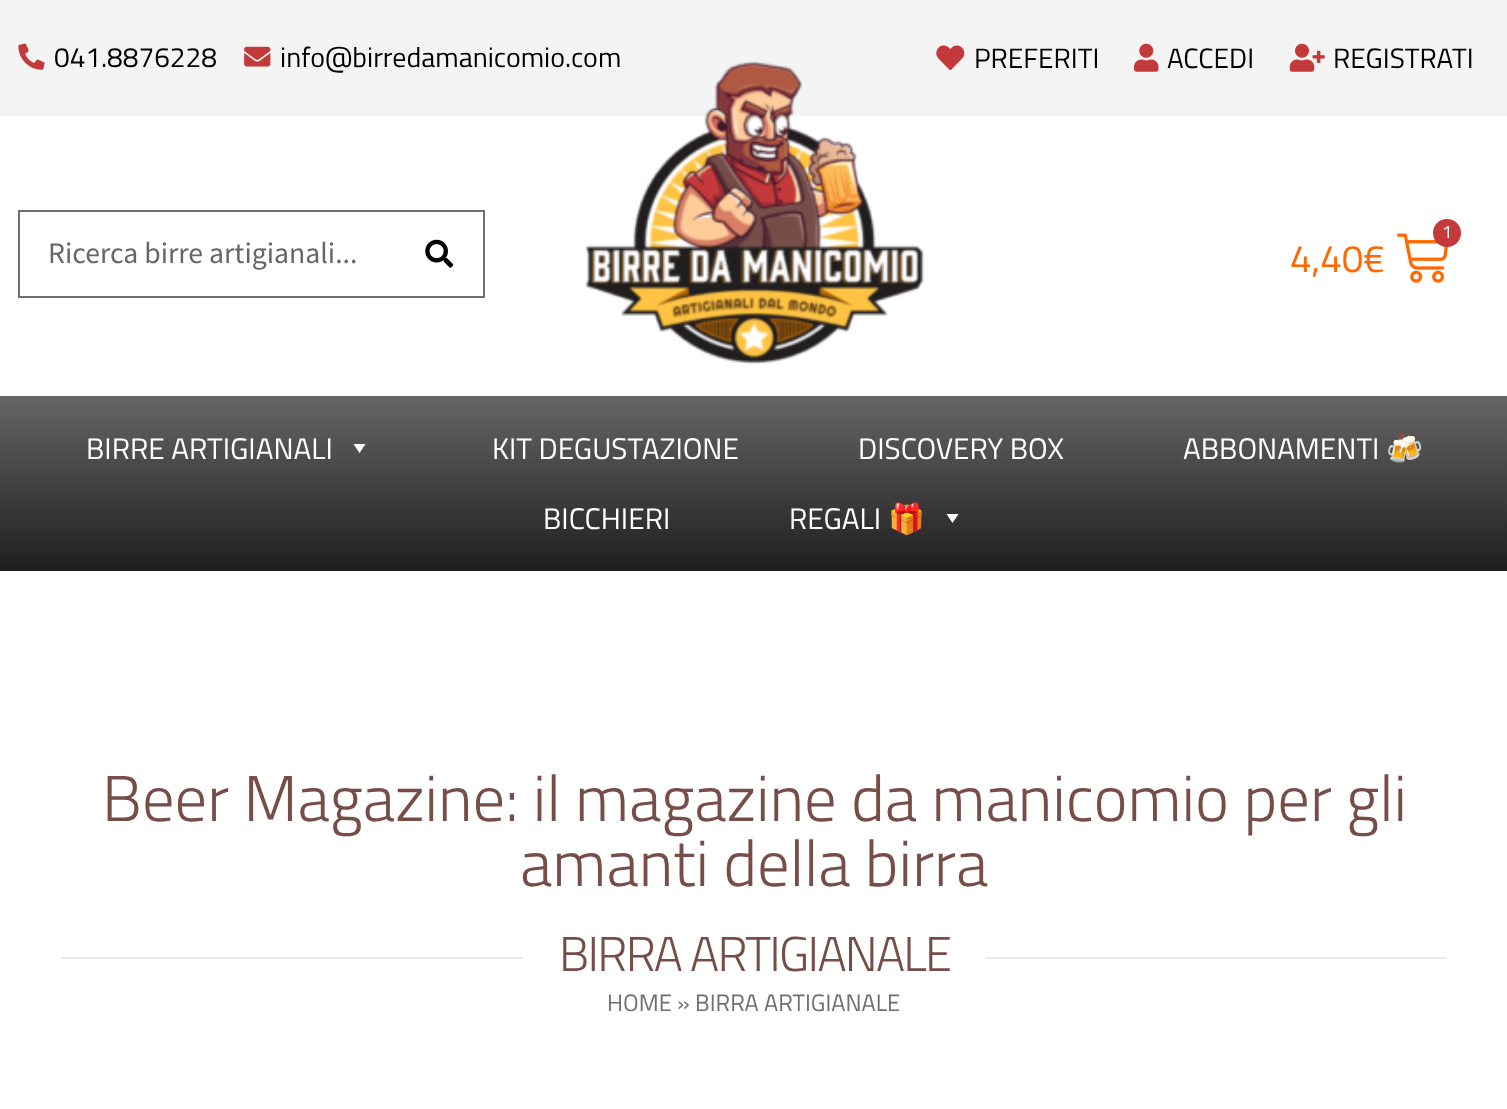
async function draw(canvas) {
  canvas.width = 1507;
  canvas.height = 1109;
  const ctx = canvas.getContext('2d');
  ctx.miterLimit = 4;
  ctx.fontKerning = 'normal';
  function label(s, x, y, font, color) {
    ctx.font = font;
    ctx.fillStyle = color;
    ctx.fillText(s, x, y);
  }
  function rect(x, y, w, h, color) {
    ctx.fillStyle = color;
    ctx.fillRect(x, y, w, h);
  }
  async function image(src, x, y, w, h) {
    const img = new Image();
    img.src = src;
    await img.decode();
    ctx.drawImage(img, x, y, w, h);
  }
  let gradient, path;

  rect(0, 0, 1507, 1109, '#fff');
  rect(0, 0, 1507, 116, '#f4f4f4');
  await image('assets/img1.png', 18, 43, 27, 27);
  label('041.8876228', 54, 67, '28px Titillium Web', '#000');
  await image('assets/img2.png', 244, 46, 27, 21);
  label('info@birredamanicomio.com', 280, 67, '28px Titillium Web', '#000');
  await image('assets/img3.png', 936, 45, 29, 25);
  label('PREFERITI', 974, 68, '28px Titillium Web', '#000');
  await image('assets/img4.png', 1134, 43, 25, 29);
  label('ACCEDI', 1167, 68, '28px Titillium Web', '#000');
  await image('assets/img5.png', 1289, 43, 36, 29);
  label('REGISTRATI', 1333, 68, '28px Titillium Web', '#000');
  ctx.strokeStyle = '#6f6f6f';
  ctx.lineWidth = 2;
  ctx.strokeRect(19, 211, 465, 86);
  label('Ricerca birre artigianali...', 48, 263, '29.75px Source Sans Pro', '#666');
  await image('assets/img6.png', 425, 239, 29, 29);
  await image('assets/img7.png', 585, 61, 340, 304);
  await image('assets/img8.png', 1397, 233, 51, 50);
  ctx.fillStyle = '#c43939';
  ctx.beginPath();
  ctx.arc(1447, 233, 14, 0, 2 * Math.PI);
  ctx.fill();
  label('1', 1442, 238, '18px Titillium Web', '#fff');
  label('4,40€', 1290, 272, '38.5px Titillium Web', '#ff6900');
  gradient = ctx.createLinearGradient(754, 395, 754, 571);
  gradient.addColorStop(0, '#666');
  gradient.addColorStop(1, '#201e1f');
  ctx.fillStyle = gradient;
  ctx.fillRect(0, 396, 1507, 175);
  label('BIRRE ARTIGIANALI', 86, 459, '29.75px Titillium Web', '#fff');
  path = new Path2D('M365.5 444L359.5 453L353.5 444Z');
  ctx.fill(path);
  label('KIT DEGUSTAZIONE', 492, 459, '29.75px Titillium Web', '#fff');
  label('DISCOVERY BOX', 858, 459, '29.75px Titillium Web', '#fff');
  label('ABBONAMENTI', 1183, 459, '29.75px Titillium Web', '#fff');
  label('🍻', 1386, 459, '29.75px Noto Color Emoji', '#fff');
  label('BICCHIERI', 543, 529, '29.75px Titillium Web', '#fff');
  label('REGALI', 789, 529, '29.75px Titillium Web', '#fff');
  label('🎁', 888, 529, '29.75px Noto Color Emoji', '#fff');
  path = new Path2D('M958.5 514L952.5 523L946.5 514Z');
  ctx.fill(path);
  label('Beer Magazine: il magazine da manicomio per gli', 102, 821, '300 64.75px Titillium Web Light', '#764e47');
  label('amanti della birra', 520, 886, '300 64.75px Titillium Web Light', '#764e47');
  rect(61, 957, 1386, 2, '#ebebeb');
  rect(523, 957, 462, 2, '#fff');
  ctx.letterSpacing = '-1.75px';
  label('BIRRA ARTIGIANALE', 559, 971, '300 49px Titillium Web Light', '#764e47');
  ctx.letterSpacing = '0px';
  label('HOME » BIRRA ARTIGIANALE', 607, 1011, '23.75px Titillium Web', '#6f6f6f');
}

draw(document.querySelector('canvas'));
